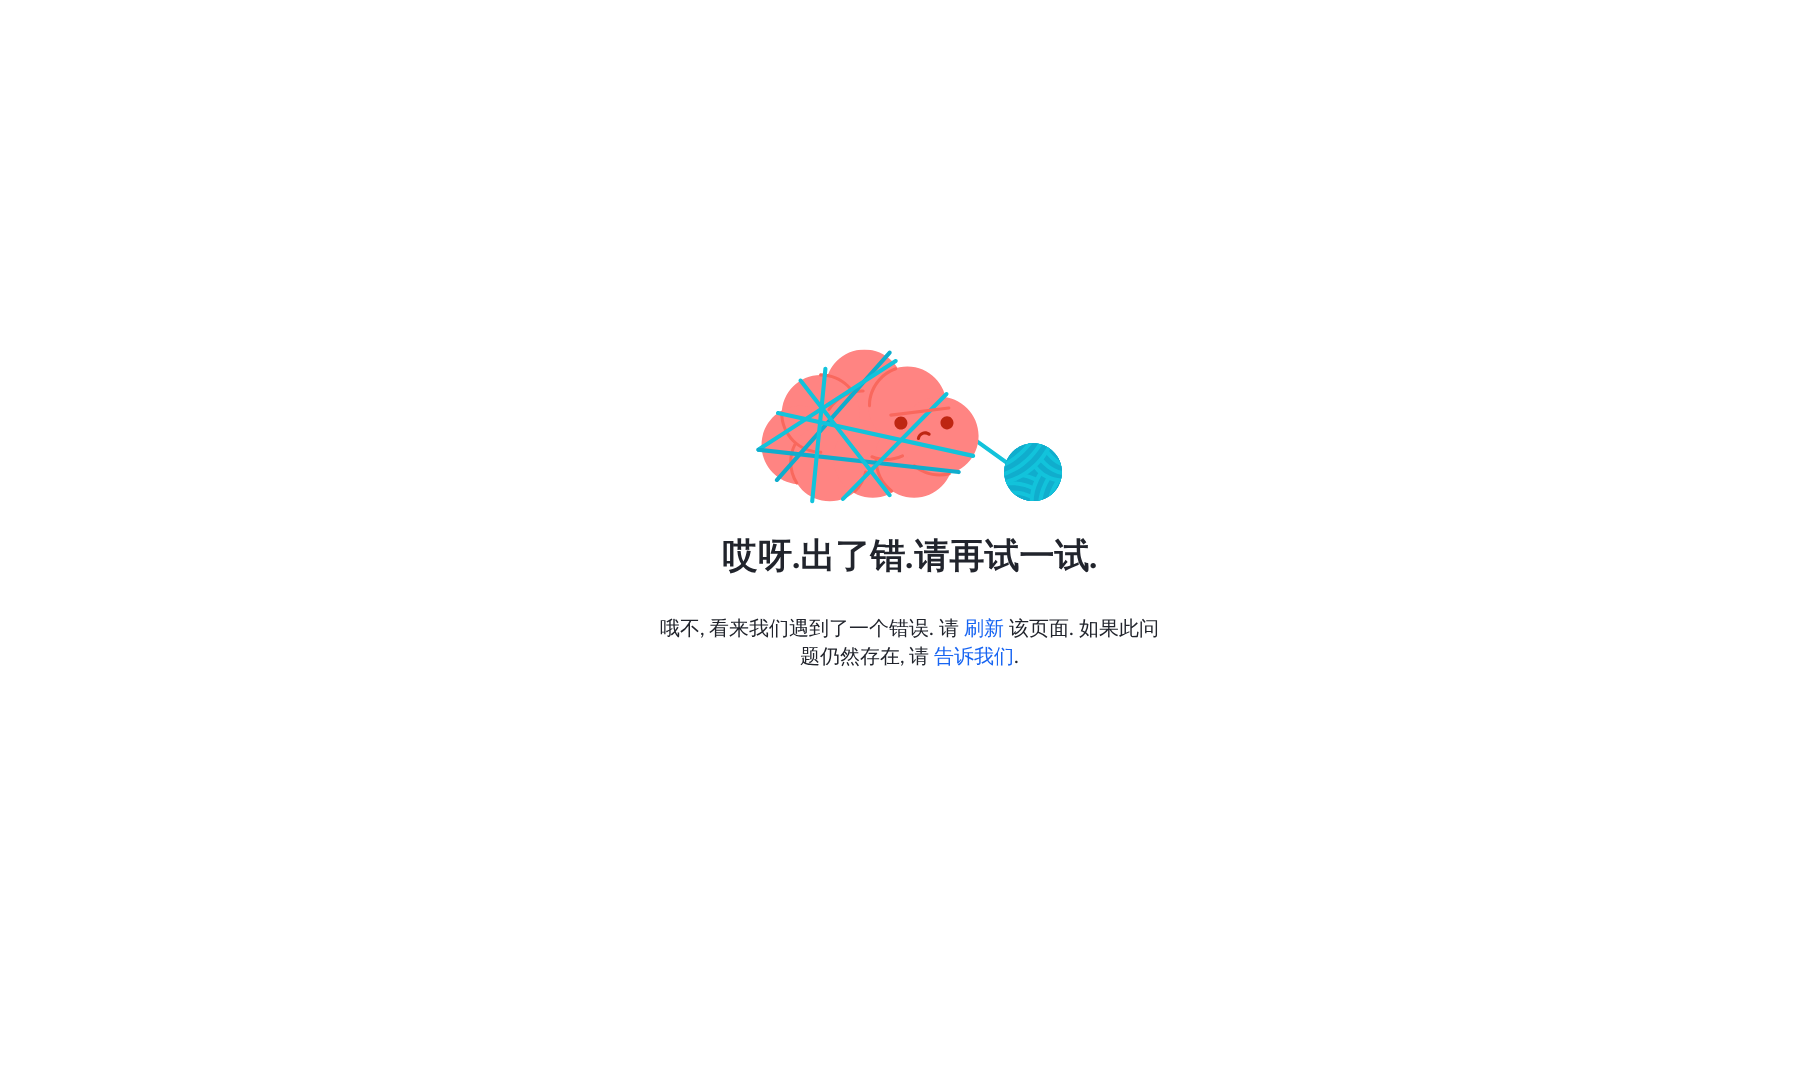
async function draw(canvas) {
  canvas.width = 1818;
  canvas.height = 1092;
  const ctx = canvas.getContext('2d');
  ctx.miterLimit = 4;
  ctx.fontKerning = 'normal';
  function label(s, x, y, font, color) {
    ctx.font = font;
    ctx.fillStyle = color;
    ctx.fillText(s, x, y);
  }
  function rect(x, y, w, h, color) {
    ctx.fillStyle = color;
    ctx.fillRect(x, y, w, h);
  }
  async function image(src, x, y, w, h) {
    const img = new Image();
    img.src = src;
    await img.decode();
    ctx.drawImage(img, x, y, w, h);
  }

  rect(0, 0, 1818, 1092, '#fff');
  await image('assets/img1.png', 756, 349, 306, 155);
  label('哎呀', 722, 568, 'bold 35px WenQuanYi Zen Hei', '#21242c');
  label('.', 792, 568, 'bold 35px Lato', '#21242c');
  label('出了错', 800, 568, 'bold 35px WenQuanYi Zen Hei', '#21242c');
  label('.', 905, 568, 'bold 35px Lato', '#21242c');
  label('请再试一试', 914, 568, 'bold 35px WenQuanYi Zen Hei', '#21242c');
  label('.', 1089, 568, 'bold 35px Lato', '#21242c');
  label('哦不', 660, 635, '500 20px WenQuanYi Zen Hei', '#21242c');
  label(',', 700, 635, '20px Lato', '#21242c');
  label('看来我们遇到了一个错误', 709, 635, '500 20px WenQuanYi Zen Hei', '#21242c');
  label('.', 929, 635, '20px Lato', '#21242c');
  label('请', 939, 635, '500 20px WenQuanYi Zen Hei', '#21242c');
  label('刷新', 964, 635, '500 20px WenQuanYi Zen Hei', '#1865f2');
  label('该页面', 1009, 635, '500 20px WenQuanYi Zen Hei', '#21242c');
  label('.', 1069, 635, '20px Lato', '#21242c');
  label('如果此问', 1079, 635, '500 20px WenQuanYi Zen Hei', '#21242c');
  label('题仍然存在', 800, 663, '500 20px WenQuanYi Zen Hei', '#21242c');
  label(',', 900, 663, '20px Lato', '#21242c');
  label('请', 909, 663, '500 20px WenQuanYi Zen Hei', '#21242c');
  label('告诉我们', 934, 663, '500 20px WenQuanYi Zen Hei', '#1865f2');
  label('.', 1014, 663, '20px Lato', '#21242c');
}

draw(document.querySelector('canvas'));
